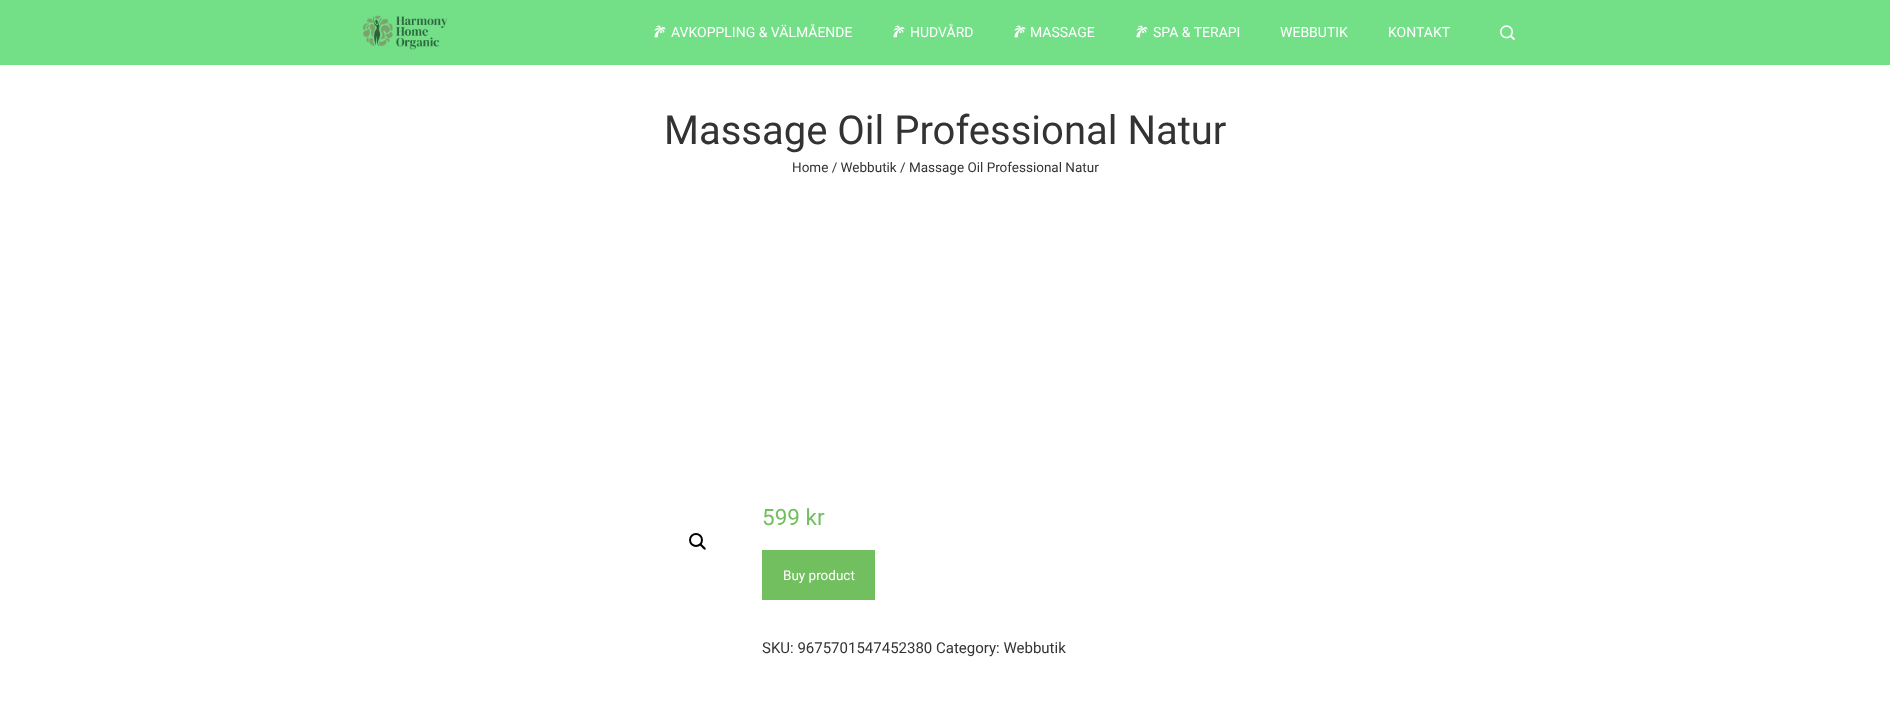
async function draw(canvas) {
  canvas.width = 1890;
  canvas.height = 718;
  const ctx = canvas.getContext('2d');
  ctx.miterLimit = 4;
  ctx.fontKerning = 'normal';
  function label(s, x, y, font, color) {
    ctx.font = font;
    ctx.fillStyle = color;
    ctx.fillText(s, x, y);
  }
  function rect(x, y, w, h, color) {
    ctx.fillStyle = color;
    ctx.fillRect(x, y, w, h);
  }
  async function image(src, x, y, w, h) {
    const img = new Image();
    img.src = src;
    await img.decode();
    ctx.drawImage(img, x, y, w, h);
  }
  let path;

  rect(0, 0, 1890, 718, '#fff');
  rect(0, 0, 1890, 65, '#73e088');
  await image('assets/img1.png', 363, 15, 85, 35);
  await image('assets/img2.png', 654, 25, 12, 13);
  label('AVKOPPLING & VÄLMÅENDE', 671, 37, '14px Roboto', '#fff');
  await image('assets/img2.png', 893, 25, 12, 13);
  label('HUDVÅRD', 910, 37, '14px Roboto', '#fff');
  await image('assets/img2.png', 1014, 25, 12, 13);
  label('MASSAGE', 1030, 37, '14px Roboto', '#fff');
  await image('assets/img2.png', 1136, 25, 12, 13);
  label('SPA & TERAPI', 1153, 37, '14px Roboto', '#fff');
  label('WEBBUTIK', 1280, 37, '14px Roboto', '#fff');
  label('KONTAKT', 1388, 37, '14px Roboto', '#fff');
  await image('assets/img3.png', 1500, 25, 15, 16);
  label('Massage Oil Professional Natur', 664, 144, '40px Roboto', '#333');
  label('Home / Webbutik / Massage Oil Professional Natur', 792, 172, '13.5px Roboto', '#333');
  ctx.beginPath();
  ctx.arc(696, 540, 6, 0, 2 * Math.PI);
  ctx.strokeStyle = '#000';
  ctx.lineWidth = 2;
  ctx.stroke();
  ctx.fillStyle = '#000';
  path = new Path2D('M700 544C701 542.5 702.5 545.5 703.5 546C704 546.5 706.5 548 705.5 549.5C704.5 550.5 702.5 548 702 547.5C701.5 546.5 698.5 545 700 544Z');
  ctx.fill(path);
  label('599 kr', 762, 525, '22.5px Roboto', '#71bf5f');
  rect(762, 550, 113, 50, '#71bf5f');
  label('Buy product', 783, 580, '13.5px Roboto', '#fff');
  label('SKU: 9675701547452380 Category: Webbutik', 762, 653, '15px Roboto', '#333');
}

draw(document.querySelector('canvas'));
